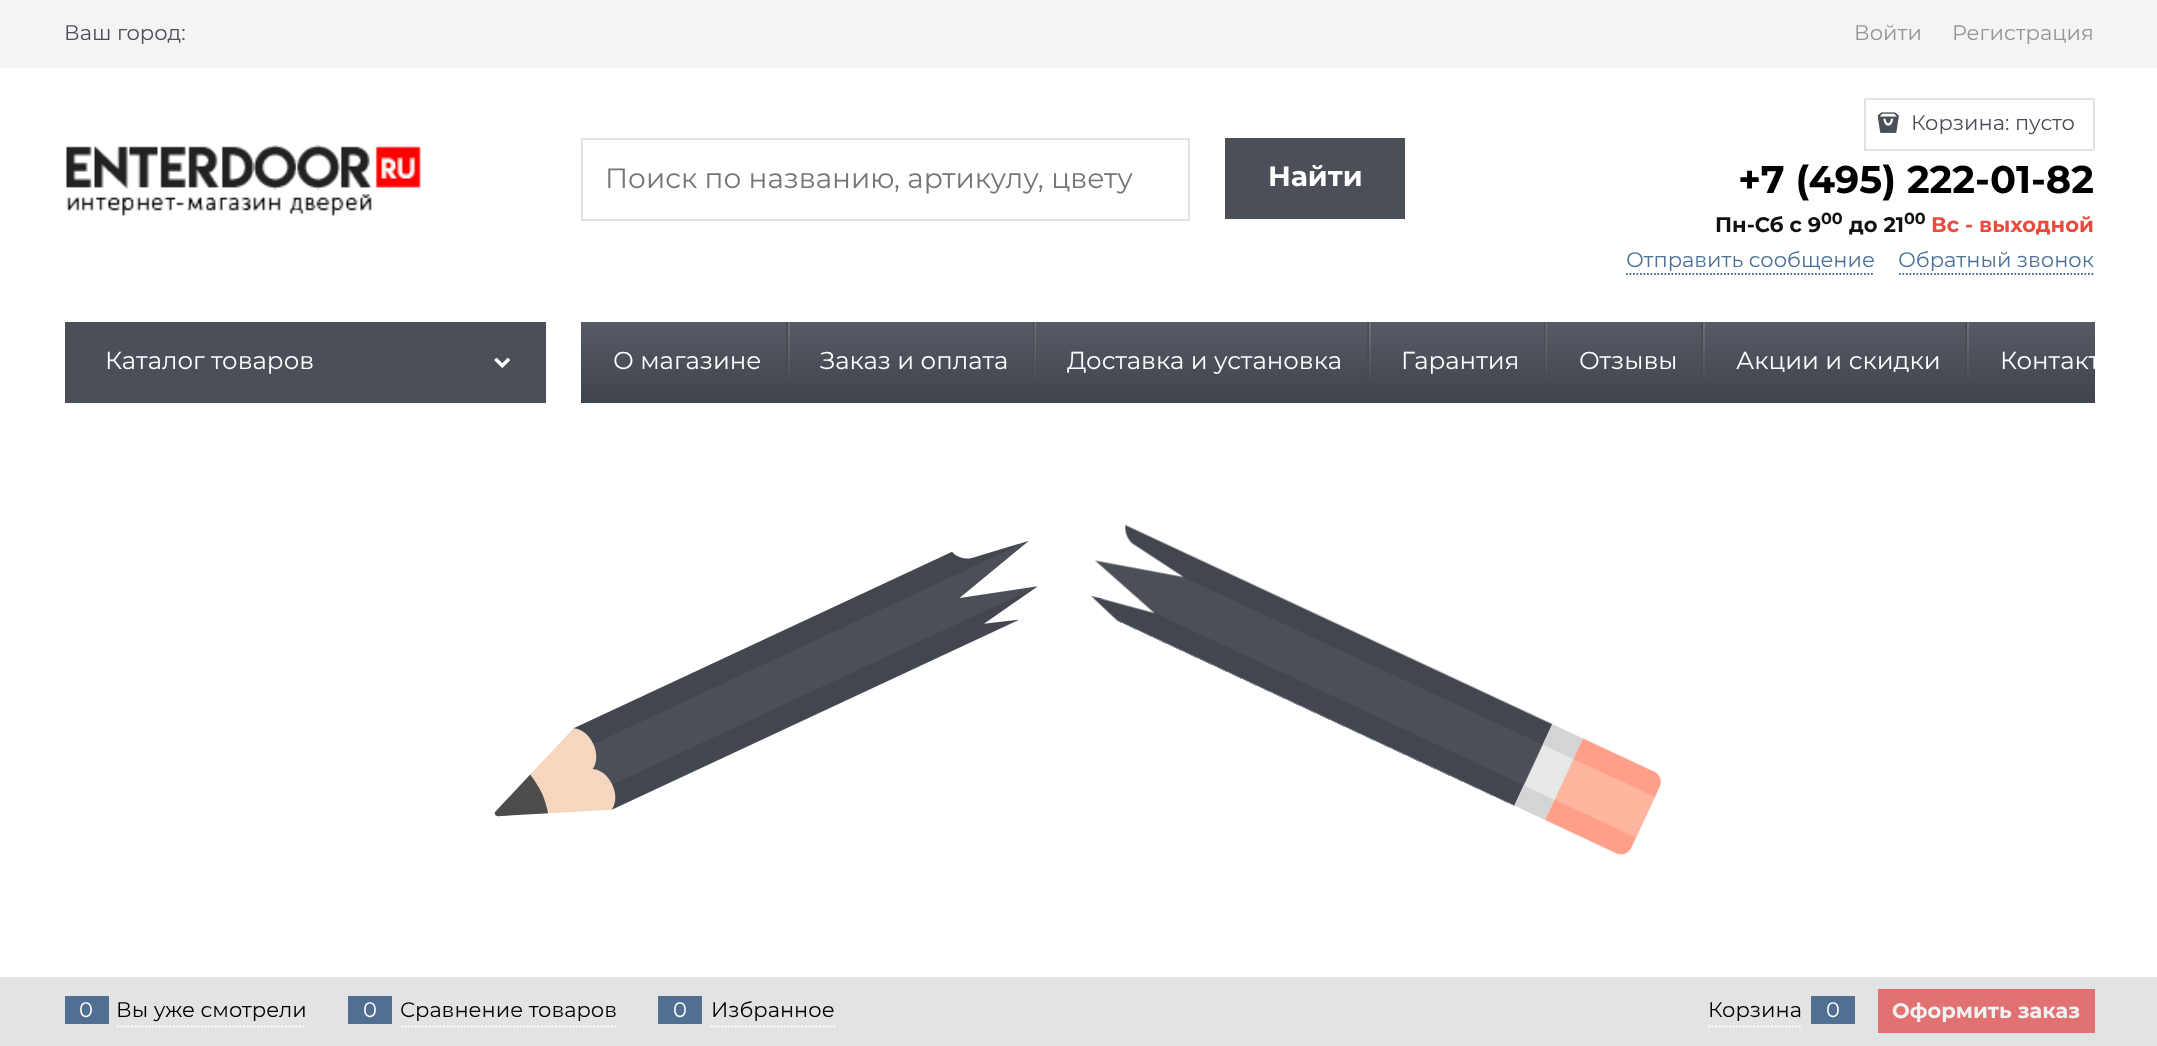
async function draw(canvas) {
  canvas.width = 2157;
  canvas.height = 1046;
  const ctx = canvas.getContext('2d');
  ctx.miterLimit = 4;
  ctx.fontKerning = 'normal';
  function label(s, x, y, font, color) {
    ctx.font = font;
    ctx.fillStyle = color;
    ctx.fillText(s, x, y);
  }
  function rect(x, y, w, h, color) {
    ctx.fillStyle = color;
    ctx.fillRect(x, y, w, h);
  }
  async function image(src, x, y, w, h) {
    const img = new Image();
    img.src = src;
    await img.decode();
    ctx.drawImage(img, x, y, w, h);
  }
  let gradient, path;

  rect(0, 0, 2157, 1046, '#fff');
  rect(0, 0, 2157, 68, '#f4f4f4');
  label('Ваш город:', 64, 40, '21px Montserrat', '#4b4f58');
  label('Войти', 1854, 40, '21px Montserrat', '#94969b');
  label('Регистрация', 1952, 40, '21px Montserrat', '#94969b');
  await image('assets/img1.png', 66, 145, 355, 71);
  ctx.strokeStyle = '#e2e3e4';
  ctx.lineWidth = 2;
  ctx.strokeRect(582, 139, 607, 81);
  label('Поиск по названию, артикулу, цвету', 605, 188, '28px Montserrat', '#757575');
  rect(1225, 138, 180, 81, '#4b4f58');
  label('Найти', 1268, 186, 'bold 28px Montserrat', '#fff');
  ctx.strokeRect(1865, 99, 229, 51);
  await image('assets/img2.png', 1877, 112, 22, 21);
  label('Корзина: пусто', 1911, 130, '21px Montserrat', '#4b4f58');
  label('+7 (495) 222-01-82', 1738, 193, 'bold 38.5px Montserrat', '#000');
  label('Пн-Сб с 9', 1715, 232, 'bold 21px Montserrat', '#111');
  label('00', 1821, 224, 'bold 16px Montserrat', '#111');
  label('до 21', 1849, 232, 'bold 21px Montserrat', '#111');
  label('00', 1904, 224, 'bold 16px Montserrat', '#111');
  label('Вс - выходной', 1931, 232, 'bold 21px Montserrat', '#e74c3c');
  label('Отправить сообщение', 1626, 267, '21px Montserrat', '#4d7198');
  path = new Path2D('M1626 274H1874');
  ctx.strokeStyle = '#4d7198';
  ctx.lineWidth = 1.8;
  ctx.setLineDash([1.75, 1.75]);
  ctx.stroke(path);
  label('Обратный звонок', 1898, 267, '21px Montserrat', '#4d7198');
  path = new Path2D('M1899 274H2095');
  ctx.stroke(path);
  rect(65, 322, 481, 81, '#4b4f58');
  label('Каталог товаров', 105, 369, '24.5px Montserrat', '#fff');
  await image('assets/img3.png', 494, 357, 17, 11);
  gradient = ctx.createLinearGradient(1338, 322, 1338, 403);
  gradient.addColorStop(0, '#575b66');
  gradient.addColorStop(0.5, '#4b4f58');
  gradient.addColorStop(1, '#3f434a');
  ctx.fillStyle = gradient;
  ctx.fillRect(581, 322, 1514, 81);
  label('О магазине', 613, 369, '24.5px Montserrat', '#fff');
  gradient = ctx.createLinearGradient(788, 322, 788, 403);
  gradient.addColorStop(0, '#ffffff24');
  gradient.addColorStop(0.72, '#ffffff05');
  gradient.addColorStop(1, '#ffffff00');
  ctx.fillStyle = gradient;
  ctx.fillRect(788, 322, 2, 58);
  gradient = ctx.createLinearGradient(787, 322, 787, 403);
  gradient.addColorStop(0, '#39393963');
  gradient.addColorStop(0.17, '#39393954');
  gradient.addColorStop(0.61, '#3939391f');
  gradient.addColorStop(0.96, '#39393903');
  gradient.addColorStop(0.98, '#ffffff03');
  gradient.addColorStop(1, '#ffffff00');
  ctx.fillStyle = gradient;
  ctx.fillRect(786, 322, 2, 57);
  label('Заказ и оплата', 820, 369, '24.5px Montserrat', '#fff');
  gradient = ctx.createLinearGradient(1035, 322, 1035, 403);
  gradient.addColorStop(0, '#ffffff24');
  gradient.addColorStop(0.72, '#ffffff05');
  gradient.addColorStop(1, '#ffffff00');
  ctx.fillStyle = gradient;
  ctx.fillRect(1034, 322, 2, 58);
  gradient = ctx.createLinearGradient(1033, 322, 1033, 403);
  gradient.addColorStop(0, '#39393963');
  gradient.addColorStop(0.17, '#39393954');
  gradient.addColorStop(0.61, '#3939391f');
  gradient.addColorStop(0.96, '#39393903');
  gradient.addColorStop(0.98, '#ffffff03');
  gradient.addColorStop(1, '#ffffff00');
  ctx.fillStyle = gradient;
  ctx.fillRect(1033, 322, 2, 58);
  label('Доставка и установка', 1067, 369, '24.5px Montserrat', '#fff');
  gradient = ctx.createLinearGradient(1369, 322, 1369, 403);
  gradient.addColorStop(0, '#ffffff24');
  gradient.addColorStop(0.72, '#ffffff05');
  gradient.addColorStop(1, '#ffffff00');
  ctx.fillStyle = gradient;
  ctx.fillRect(1369, 322, 2, 58);
  gradient = ctx.createLinearGradient(1368, 322, 1368, 403);
  gradient.addColorStop(0, '#39393963');
  gradient.addColorStop(0.17, '#39393954');
  gradient.addColorStop(0.61, '#3939391f');
  gradient.addColorStop(0.96, '#39393903');
  gradient.addColorStop(0.98, '#ffffff03');
  gradient.addColorStop(1, '#ffffff00');
  ctx.fillStyle = gradient;
  ctx.fillRect(1367, 322, 2, 57);
  label('Гарантия', 1401, 369, '24.5px Montserrat', '#fff');
  gradient = ctx.createLinearGradient(1546, 322, 1546, 403);
  gradient.addColorStop(0, '#ffffff24');
  gradient.addColorStop(0.72, '#ffffff05');
  gradient.addColorStop(1, '#ffffff00');
  ctx.fillStyle = gradient;
  ctx.fillRect(1545, 322, 2, 58);
  gradient = ctx.createLinearGradient(1544, 322, 1544, 403);
  gradient.addColorStop(0, '#39393963');
  gradient.addColorStop(0.17, '#39393954');
  gradient.addColorStop(0.61, '#3939391f');
  gradient.addColorStop(0.96, '#39393903');
  gradient.addColorStop(0.98, '#ffffff03');
  gradient.addColorStop(1, '#ffffff00');
  ctx.fillStyle = gradient;
  ctx.fillRect(1544, 322, 2, 58);
  label('Отзывы', 1579, 369, '24.5px Montserrat', '#fff');
  gradient = ctx.createLinearGradient(1704, 322, 1704, 403);
  gradient.addColorStop(0, '#ffffff24');
  gradient.addColorStop(0.72, '#ffffff05');
  gradient.addColorStop(1, '#ffffff00');
  ctx.fillStyle = gradient;
  ctx.fillRect(1703, 322, 2, 58);
  gradient = ctx.createLinearGradient(1702, 322, 1702, 403);
  gradient.addColorStop(0, '#39393963');
  gradient.addColorStop(0.17, '#39393954');
  gradient.addColorStop(0.61, '#3939391f');
  gradient.addColorStop(0.96, '#39393903');
  gradient.addColorStop(0.98, '#ffffff03');
  gradient.addColorStop(1, '#ffffff00');
  ctx.fillStyle = gradient;
  ctx.fillRect(1701, 322, 2, 57);
  label('Акции и скидки', 1736, 369, '24.5px Montserrat', '#fff');
  gradient = ctx.createLinearGradient(1968, 322, 1968, 403);
  gradient.addColorStop(0, '#ffffff24');
  gradient.addColorStop(0.72, '#ffffff05');
  gradient.addColorStop(1, '#ffffff00');
  ctx.fillStyle = gradient;
  ctx.fillRect(1967, 322, 2, 58);
  gradient = ctx.createLinearGradient(1966, 322, 1966, 403);
  gradient.addColorStop(0, '#39393963');
  gradient.addColorStop(0.17, '#39393954');
  gradient.addColorStop(0.61, '#3939391f');
  gradient.addColorStop(0.96, '#39393903');
  gradient.addColorStop(0.98, '#ffffff03');
  gradient.addColorStop(1, '#ffffff00');
  ctx.fillStyle = gradient;
  ctx.fillRect(1965, 322, 2, 57);
  ctx.save();
  ctx.beginPath();
  ctx.rect(581, 322, 1514, 81);
  ctx.clip();
  label('Контакт', 2000, 369, '24.5px Montserrat', '#fff');
  ctx.restore();
  await image('assets/img4.png', 494, 524, 1168, 331);
  rect(0, 977, 2157, 69, '#e2e3e4');
  path = new Path2D('M117 1026.5H306');
  ctx.strokeStyle = '#fff';
  ctx.stroke(path);
  rect(65, 996, 44, 28, '#516f91');
  label('0', 79, 1017, '21px Montserrat', '#fff');
  label('Вы уже смотрели', 116, 1017, '21px Montserrat', '#000');
  path = new Path2D('M401 1026.5H618');
  ctx.stroke(path);
  rect(348, 996, 44, 28, '#516f91');
  label('0', 363, 1017, '21px Montserrat', '#fff');
  label('Сравнение товаров', 400, 1017, '21px Montserrat', '#000');
  path = new Path2D('M710.5 1026.5H835');
  ctx.stroke(path);
  rect(658, 996, 44, 28, '#516f91');
  label('0', 673, 1017, '21px Montserrat', '#fff');
  label('Избранное', 711, 1017, '21px Montserrat', '#000');
  path = new Path2D('M1708 1026.5H1802.5');
  ctx.stroke(path);
  label('Корзина', 1708, 1017, '21px Montserrat', '#000');
  rect(1811, 996, 44, 28, '#516f91');
  label('0', 1826, 1017, '21px Montserrat', '#fff');
  rect(1878, 989, 217, 44, '#e27272');
  label('Оформить заказ', 1892, 1018, 'bold 21px Montserrat', '#f1f1f2');
}

draw(document.querySelector('canvas'));
